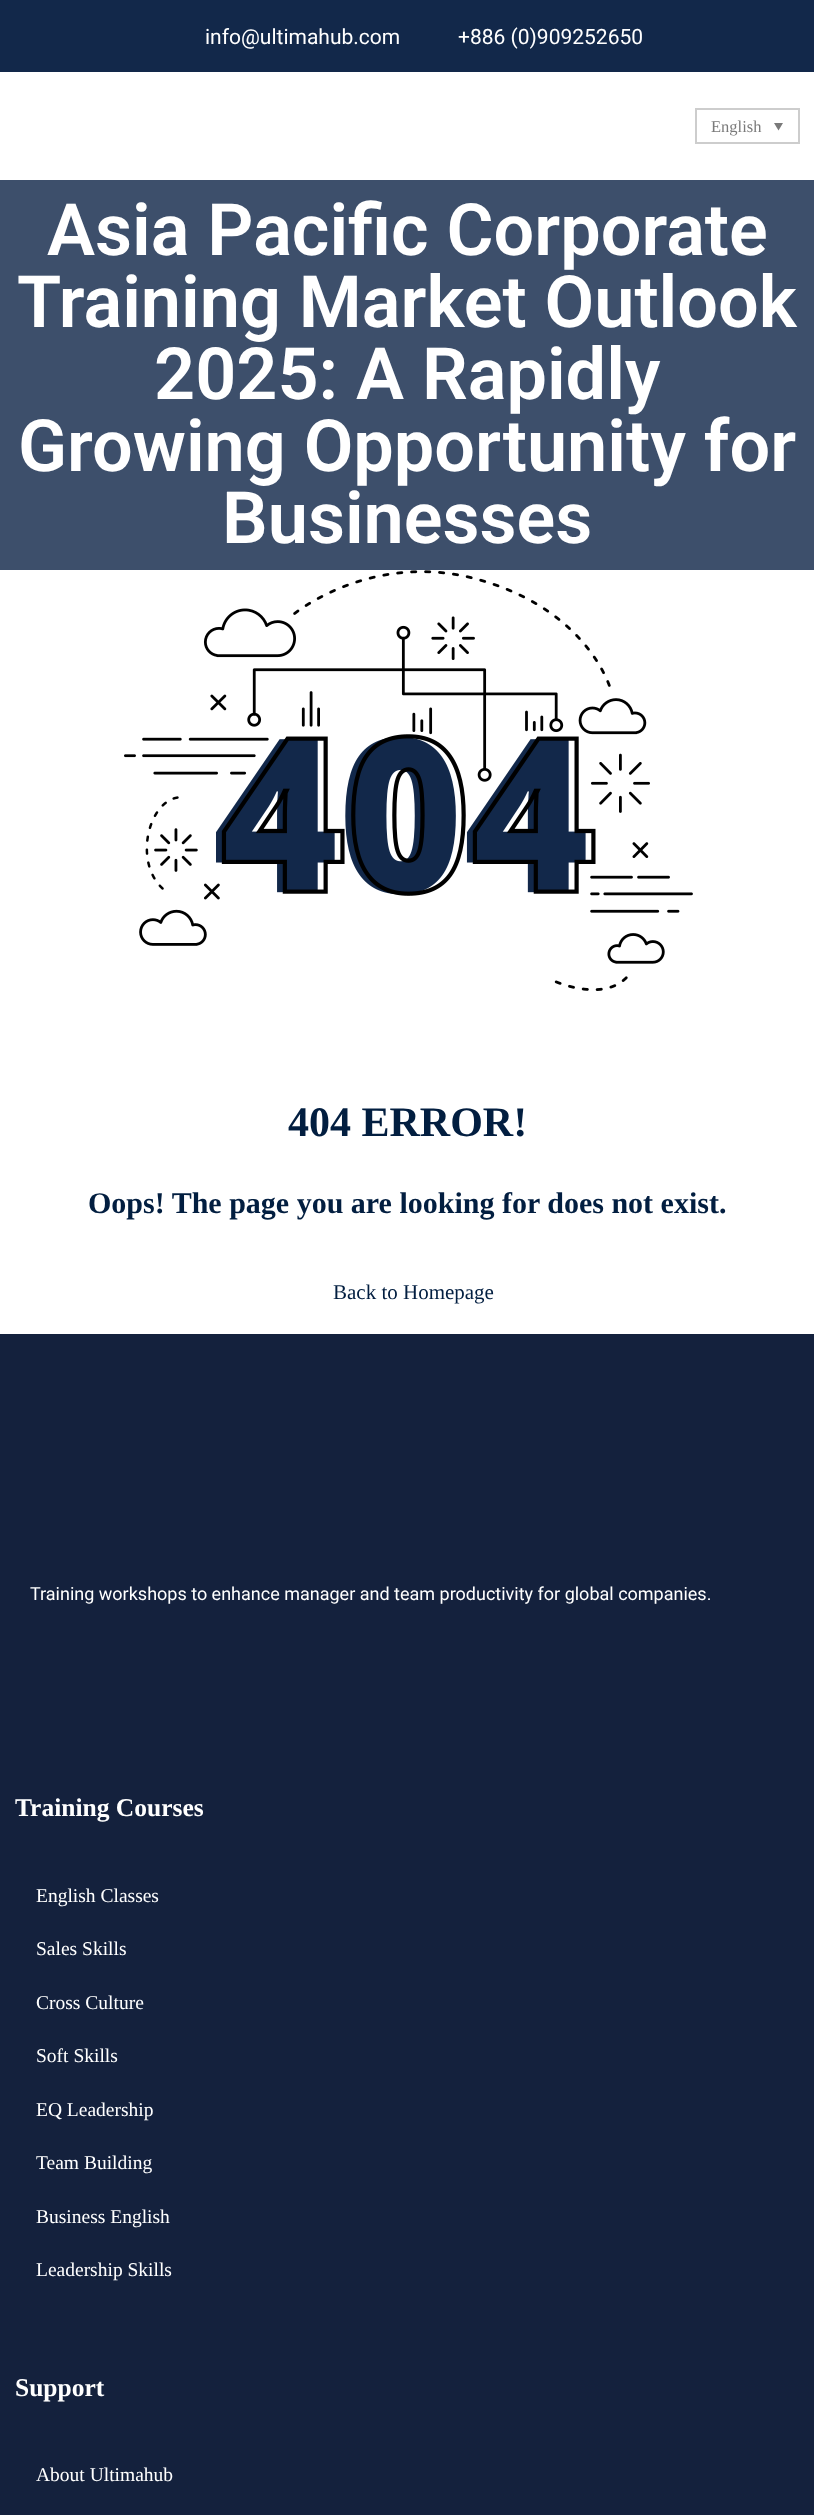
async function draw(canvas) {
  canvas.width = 814;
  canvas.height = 2515;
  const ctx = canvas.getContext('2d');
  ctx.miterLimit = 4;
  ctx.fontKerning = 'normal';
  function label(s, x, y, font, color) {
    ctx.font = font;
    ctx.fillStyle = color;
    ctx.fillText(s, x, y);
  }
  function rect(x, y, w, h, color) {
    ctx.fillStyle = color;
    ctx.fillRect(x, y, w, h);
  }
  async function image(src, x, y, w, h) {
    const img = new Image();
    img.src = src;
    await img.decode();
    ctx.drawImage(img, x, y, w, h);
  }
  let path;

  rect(0, 0, 814, 2515, '#fff');
  rect(0, 0, 814, 72, '#12284a');
  label('info@ultimahub.com', 205, 44, '21px Roboto', '#fff');
  label('+886 (0)909252650', 458, 44, '21px Roboto', '#fff');
  ctx.strokeStyle = '#cdcdcd';
  ctx.lineWidth = 2;
  ctx.strokeRect(696, 109, 103, 34);
  label('English', 711, 132, '16.5px Liberation Serif', '#7a7a7a');
  path = new Path2D('M774 123H783L778.5 130.5Z');
  ctx.fill(path);
  rect(0, 180, 814, 390, '#3d4f6b');
  label('Asia Pacific Corporate', 47, 255, '600 72px Roboto', '#fff');
  label('Training Market Outlook', 17, 327, '600 72px Roboto', '#fff');
  label('2025: A Rapidly', 154, 399, '600 72px Roboto', '#fff');
  label('Growing Opportunity for', 18, 471, '600 72px Roboto', '#fff');
  label('Businesses', 222, 543, '600 72px Roboto', '#fff');
  await image('assets/img1.png', 124, 570, 569, 421);
  label('404 ERROR!', 288, 1136, 'bold 42px Liberation Serif', '#021e40');
  label('Oops! The page you are looking for does not exist.', 88, 1213, 'bold 30px Liberation Serif', '#021e40');
  label('Back to Homepage', 333, 1299, '21px Liberation Serif', '#021e40');
  rect(0, 1334, 814, 1181, '#14213d');
  label('Training workshops to enhance manager and team productivity for global companies.', 30, 1600, '18px Roboto', '#fff');
  label('Training Courses', 15, 1816, 'bold 25.5px Liberation Serif', '#fff');
  label('English Classes', 36, 1902, '19.5px Liberation Serif', '#fff');
  label('Sales Skills', 36, 1955, '19.5px Liberation Serif', '#fff');
  label('Cross Culture', 36, 2009, '19.5px Liberation Serif', '#fff');
  label('Soft Skills', 36, 2062, '19.5px Liberation Serif', '#fff');
  label('EQ Leadership', 36, 2116, '19.5px Liberation Serif', '#fff');
  label('Team Building', 36, 2169, '19.5px Liberation Serif', '#fff');
  label('Business English', 36, 2223, '19.5px Liberation Serif', '#fff');
  label('Leadership Skills', 36, 2276, '19.5px Liberation Serif', '#fff');
  label('Support', 15, 2396, 'bold 25.5px Liberation Serif', '#fff');
  label('About Ultimahub', 36, 2481, '19.5px Liberation Serif', '#fff');
}

draw(document.querySelector('canvas'));
